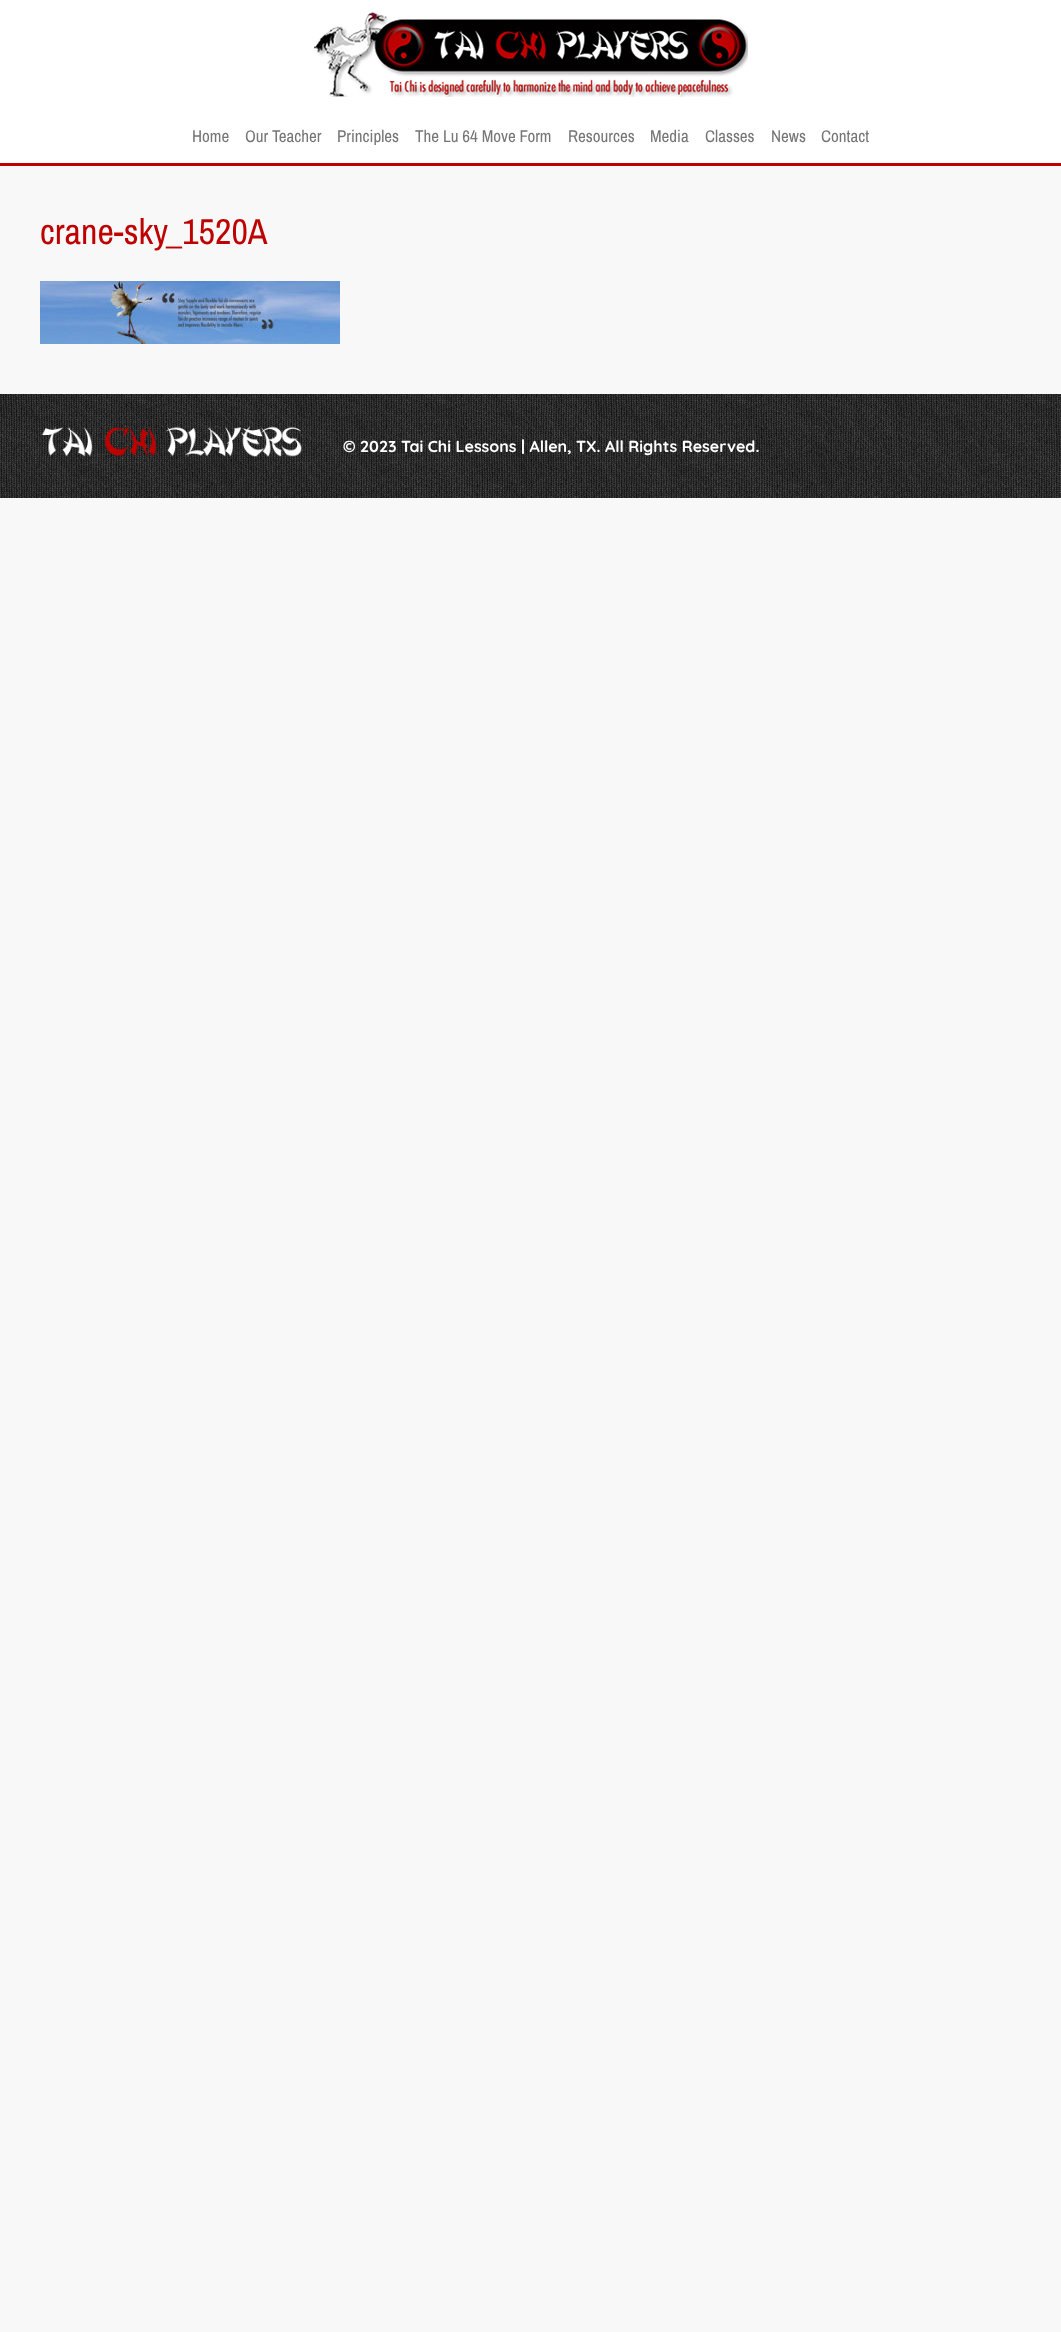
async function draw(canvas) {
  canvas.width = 1061;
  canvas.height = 2332;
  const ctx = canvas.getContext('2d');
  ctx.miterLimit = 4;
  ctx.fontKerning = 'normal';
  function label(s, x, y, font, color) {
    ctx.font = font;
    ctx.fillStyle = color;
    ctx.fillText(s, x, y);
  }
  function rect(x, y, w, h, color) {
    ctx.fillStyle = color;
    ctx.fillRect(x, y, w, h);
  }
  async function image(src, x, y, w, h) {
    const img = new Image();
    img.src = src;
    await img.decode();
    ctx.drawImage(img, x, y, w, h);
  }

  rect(0, 0, 1061, 2332, '#f8f8f8');
  rect(0, 0, 1061, 163, '#fff');
  await image('assets/img1.png', 314, 12, 434, 85);
  rect(0, 163, 1061, 3, '#be0000');
  label('Home', 192, 142, '17px Archivo Narrow', '#757575');
  label('Our Teacher', 245, 142, '17px Archivo Narrow', '#757575');
  label('Principles', 337, 142, '17px Archivo Narrow', '#757575');
  label('The Lu 64 Move Form', 415, 142, '17px Archivo Narrow', '#757575');
  label('Resources', 568, 142, '17px Archivo Narrow', '#757575');
  label('Media', 650, 142, '17px Archivo Narrow', '#757575');
  label('Classes', 705, 142, '17px Archivo Narrow', '#757575');
  label('News', 771, 142, '17px Archivo Narrow', '#757575');
  label('Contact', 821, 142, '17px Archivo Narrow', '#757575');
  label('crane-sky_1520A', 40, 244, '36px Archivo Narrow', '#bd0201');
  await image('assets/img2.png', 40, 281, 300, 63);
  await image('assets/img3.png', 0, 394, 1061, 104);
  await image('assets/img4.png', 41, 426, 261, 31);
  label('© 2023 Tai Chi Lessons | Allen, TX. All Rights Reserved.', 343, 452, 'bold 16px Quicksand', '#fff');
}

draw(document.querySelector('canvas'));
